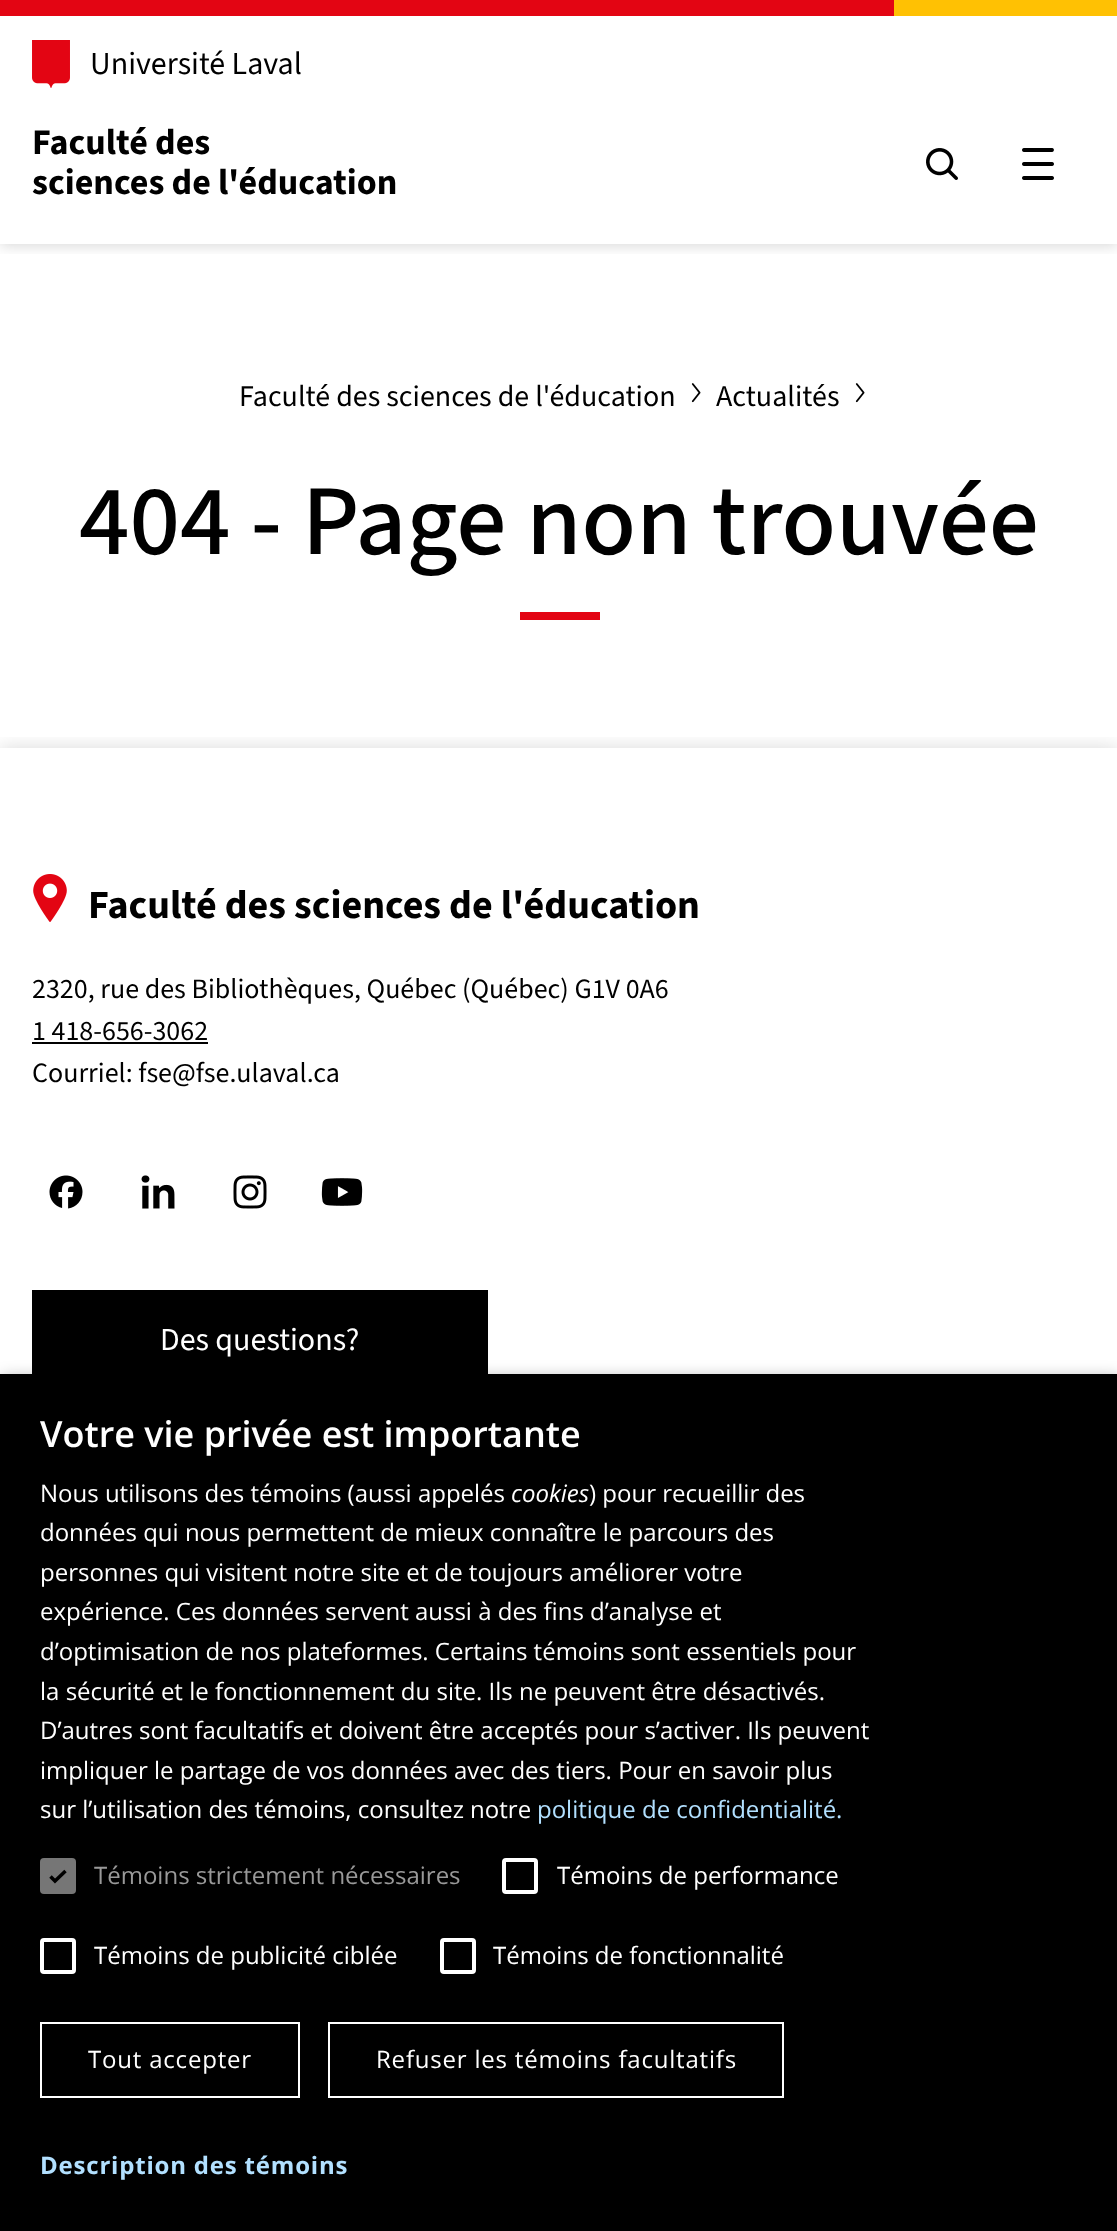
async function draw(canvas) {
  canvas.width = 1117;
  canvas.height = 2231;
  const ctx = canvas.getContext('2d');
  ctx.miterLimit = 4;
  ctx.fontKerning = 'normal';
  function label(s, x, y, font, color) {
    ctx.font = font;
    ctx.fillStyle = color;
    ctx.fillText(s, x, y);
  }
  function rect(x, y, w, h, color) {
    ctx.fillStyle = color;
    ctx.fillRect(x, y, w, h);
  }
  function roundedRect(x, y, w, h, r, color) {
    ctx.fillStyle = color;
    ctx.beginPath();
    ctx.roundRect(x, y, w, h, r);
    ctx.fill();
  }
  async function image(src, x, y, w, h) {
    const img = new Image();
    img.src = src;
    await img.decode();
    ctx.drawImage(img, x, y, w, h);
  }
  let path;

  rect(0, 0, 1117, 2231, '#fff');
  ctx.save();
  ctx.beginPath();
  ctx.rect(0, 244, 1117, 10);
  ctx.clip();
  ctx.fillStyle = '#00000026';
  ctx.filter = 'blur(7px)';
  ctx.beginPath();
  ctx.rect(0, 2, 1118, 244);
  ctx.fill();
  ctx.filter = 'none';
  ctx.restore();
  rect(0, 0, 894, 16, '#e30513');
  rect(894, 0, 223, 16, '#ffc103');
  await image('assets/img1.png', 32, 40, 38, 48);
  label('Université Laval', 90, 74, '32px "Source Sans 3"', '#000');
  label('Faculté des', 32, 154, 'bold 36px "Source Sans 3"', '#000');
  label('sciences de l\'éducation', 32, 194, 'bold 36px "Source Sans 3"', '#000');
  await image('assets/img2.png', 926, 148, 32, 32);
  await image('assets/img3.png', 1022, 148, 32, 32);
  label('Faculté des sciences de l\'éducation', 239, 406, '30px "Source Sans 3"', '#000');
  await image('assets/img4.png', 691, 383, 10, 20);
  label('Actualités', 716, 406, '30px "Source Sans 3"', '#000');
  await image('assets/img4.png', 855, 383, 10, 20);
  label('404 - Page non trouvée', 79, 554, '500 100px "Source Sans 3"', '#000');
  rect(520, 612, 80, 8, '#e30513');
  ctx.save();
  ctx.beginPath();
  ctx.rect(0, 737, 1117, 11);
  ctx.clip();
  ctx.fillStyle = '#00000026';
  ctx.filter = 'blur(10px)';
  ctx.beginPath();
  ctx.rect(0, 748, 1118, 1120);
  ctx.fill();
  ctx.filter = 'none';
  ctx.restore();
  await image('assets/img5.png', 33, 874, 34, 48);
  label('Faculté des sciences de l\'éducation', 88, 918, 'bold 40px "Source Sans 3"', '#000');
  label('2320, rue des Bibliothèques, Québec (Québec) G1V 0A6', 32, 998, '28px "Source Sans 3"', '#000');
  label('1 418-656-3062', 32, 1040, '28px "Source Sans 3"', '#000');
  rect(32, 1042, 176, 2, '#000');
  label('Courriel: fse@fse.ulaval.ca', 32, 1082, '28px "Source Sans 3"', '#000');
  await image('assets/img6.png', 49, 1175, 34, 34);
  await image('assets/img7.png', 141, 1175, 34, 34);
  await image('assets/img8.png', 233, 1175, 34, 34);
  await image('assets/img9.png', 321, 1178, 42, 28);
  rect(32, 1290, 456, 84, '#000');
  label('Des questions?', 160, 1350, '32px "Source Sans 3"', '#fff');
  ctx.fillStyle = '#00000059';
  ctx.filter = 'blur(8px)';
  ctx.beginPath();
  ctx.rect(2, 1378, 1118, 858);
  ctx.fill();
  ctx.filter = 'none';
  rect(0, 1374, 1117, 857, '#000');
  label('Votre vie privée est importante', 40, 1447, '600 36px Open Sans', '#fff');
  label('Nous utilisons des témoins (aussi appelés', 40, 1502, '24px Open Sans', '#fff');
  label('cookies', 511, 1502, 'italic 24px Open Sans', '#fff');
  label(') pour recueillir des', 589, 1502, '24px Open Sans', '#fff');
  label('données qui nous permettent de mieux connaître le parcours des', 40, 1541, '24px Open Sans', '#fff');
  label('personnes qui visitent notre site et de toujours améliorer votre', 40, 1581, '24px Open Sans', '#fff');
  label('expérience. Ces données servent aussi à des fins d’analyse et', 40, 1620, '24px Open Sans', '#fff');
  label('d’optimisation de nos plateformes. Certains témoins sont essentiels pour', 40, 1660, '24px Open Sans', '#fff');
  label('la sécurité et le fonctionnement du site. Ils ne peuvent être désactivés.', 40, 1700, '24px Open Sans', '#fff');
  label('D’autres sont facultatifs et doivent être acceptés pour s’activer. Ils peuvent', 40, 1739, '24px Open Sans', '#fff');
  label('impliquer le partage de vos données avec des tiers. Pour en savoir plus', 40, 1779, '24px Open Sans', '#fff');
  label('sur l’utilisation des témoins, consultez notre', 40, 1818, '24px Open Sans', '#fff');
  label('politique de confidentialité.', 537, 1818, '24px Open Sans', '#b2e0ff');
  roundedRect(40, 1858, 36, 36, 4, '#767676');
  path = new Path2D('M50.5 1876.5L55 1881L65.5 1871');
  ctx.strokeStyle = '#000';
  ctx.lineWidth = 3.5;
  ctx.stroke(path);
  label('Témoins strictement nécessaires', 94, 1884, '24px Open Sans', '#999');
  ctx.beginPath();
  ctx.roundRect(504, 1860, 32, 32, 2);
  ctx.strokeStyle = '#fff';
  ctx.lineWidth = 4;
  ctx.stroke();
  label('Témoins de performance', 557, 1884, '24px Open Sans', '#fff');
  ctx.beginPath();
  ctx.roundRect(42, 1940, 32, 32, 2);
  ctx.stroke();
  label('Témoins de publicité ciblée', 94, 1964, '24px Open Sans', '#fff');
  ctx.beginPath();
  ctx.roundRect(442, 1940, 32, 32, 2);
  ctx.stroke();
  label('Témoins de fonctionnalité', 493, 1964, '24px Open Sans', '#fff');
  ctx.lineWidth = 2;
  ctx.strokeRect(41, 2023, 258, 74);
  ctx.letterSpacing = '0.8px';
  label('Tout accepter', 88, 2068, '24px Open Sans', '#fff');
  ctx.strokeRect(329, 2023, 454, 74);
  label('Refuser les témoins facultatifs', 376, 2068, '24px Open Sans', '#fff');
  label('Description des témoins', 40, 2174, 'bold 24px Open Sans', '#b2e0ff');
}

draw(document.querySelector('canvas'));
